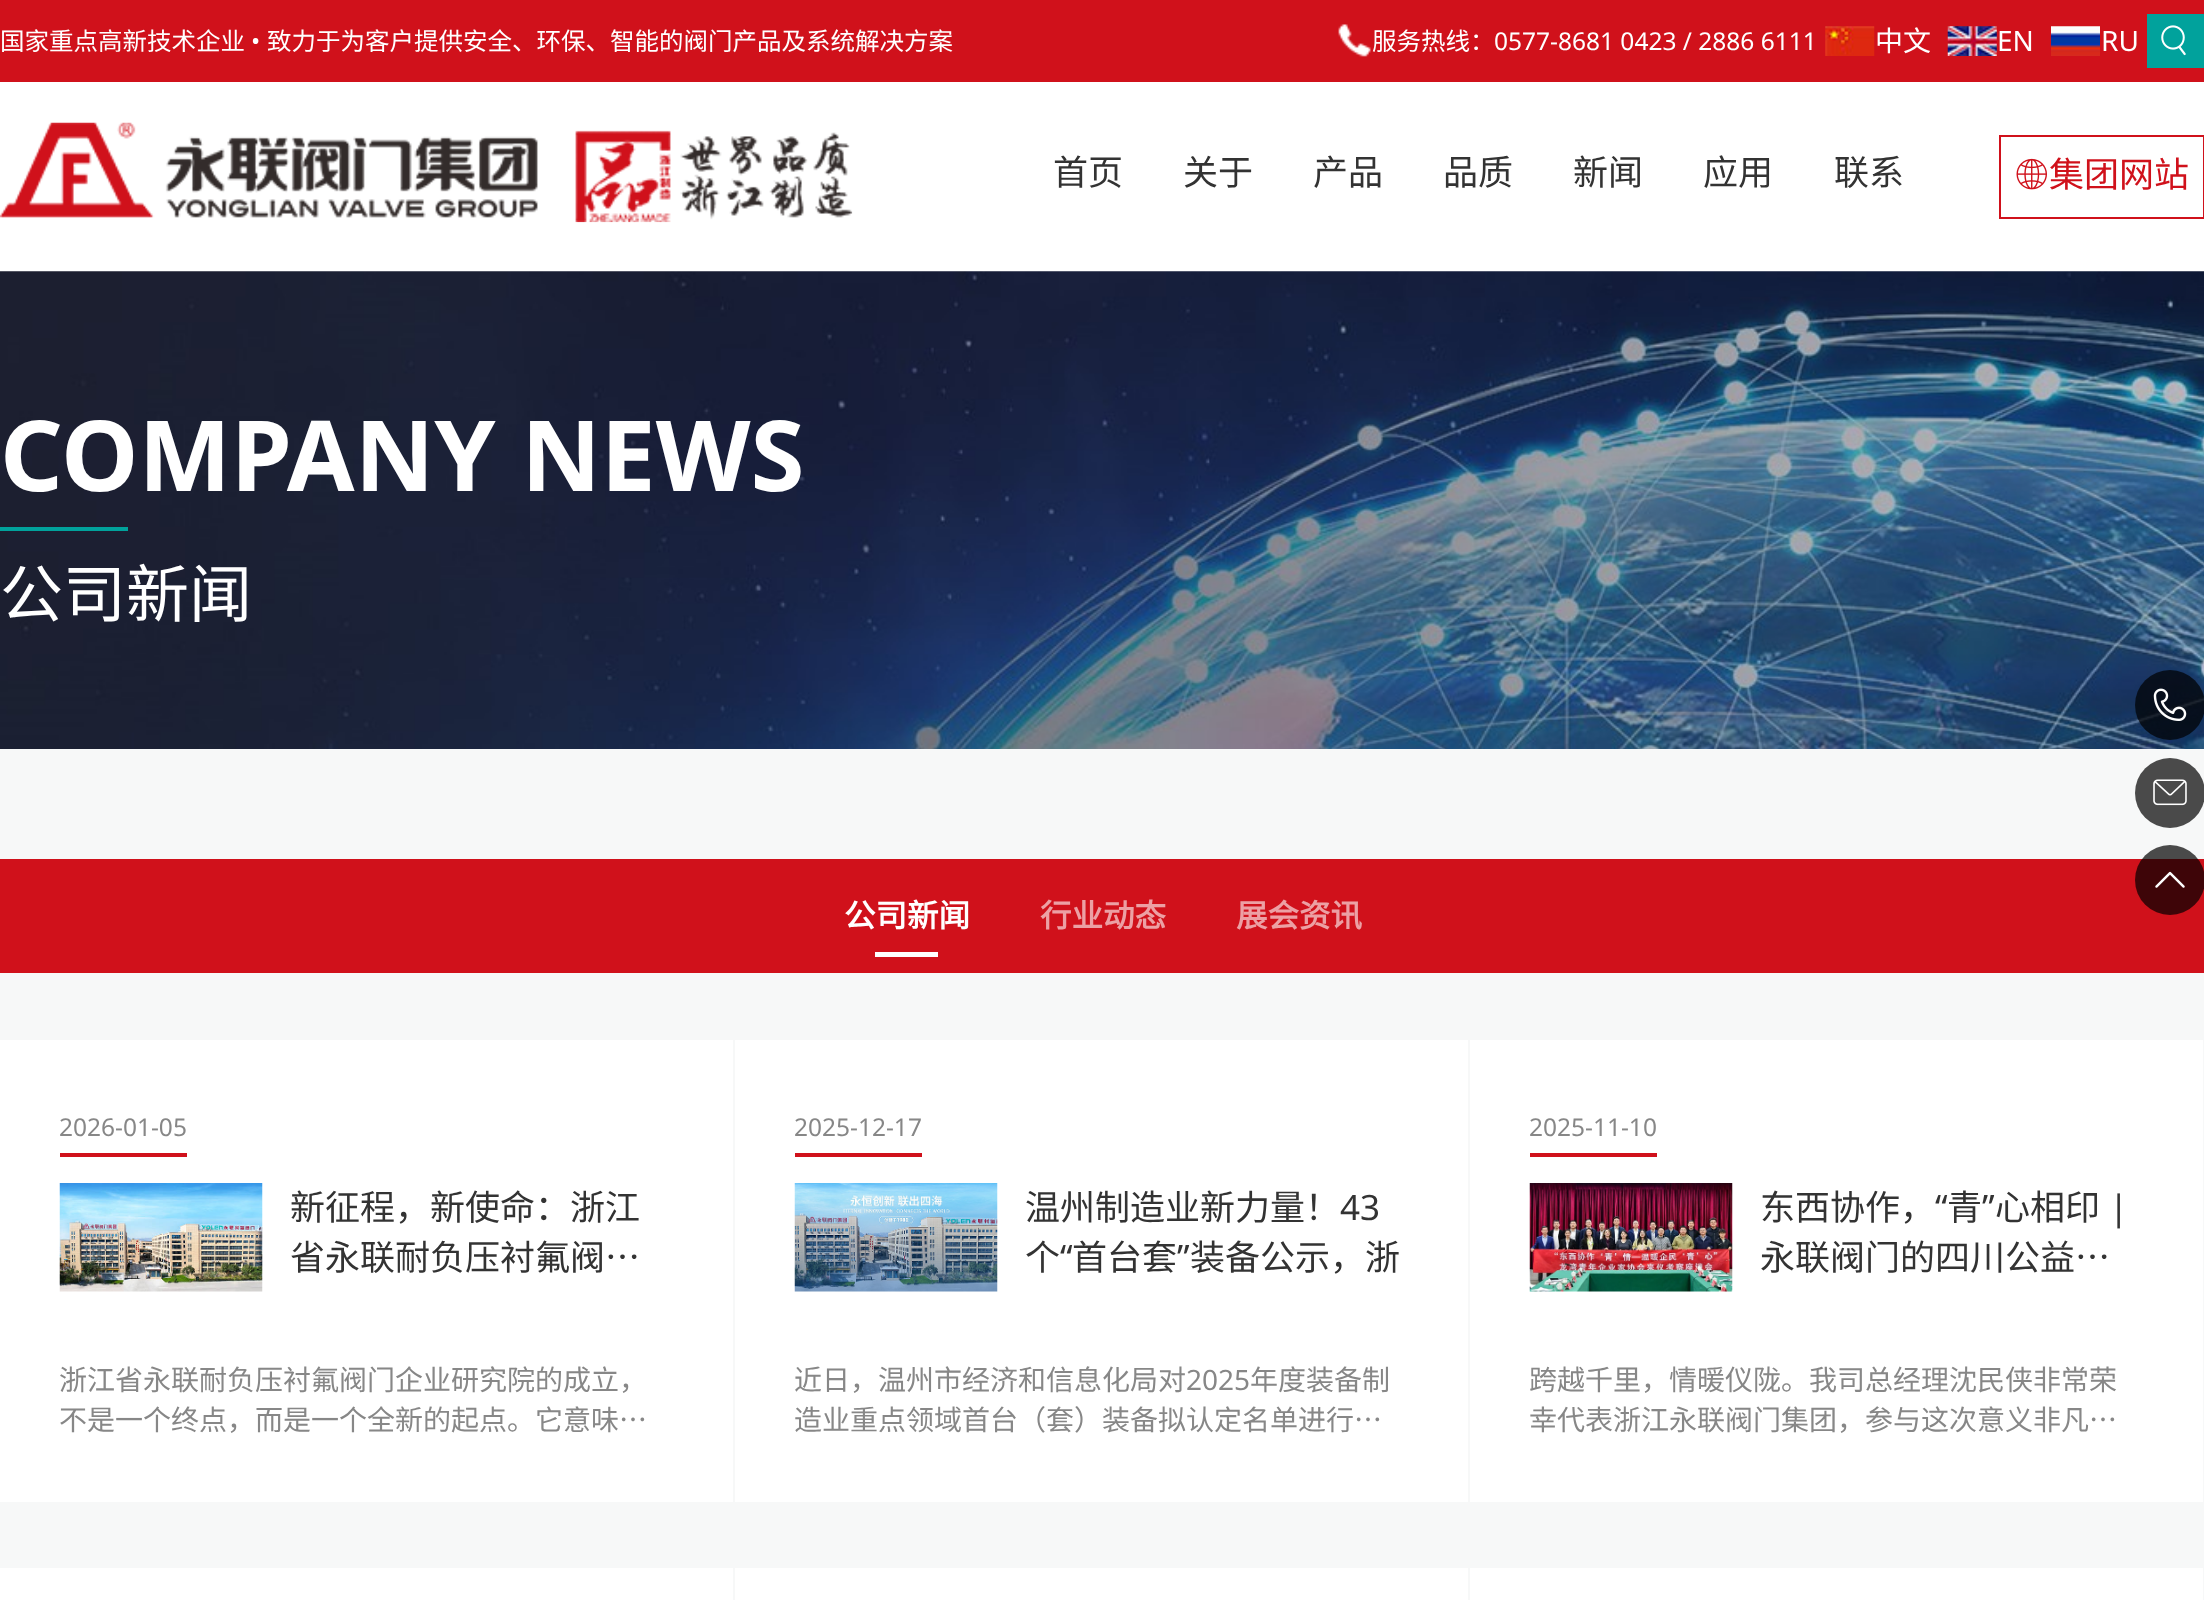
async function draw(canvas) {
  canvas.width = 2204;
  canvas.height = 1600;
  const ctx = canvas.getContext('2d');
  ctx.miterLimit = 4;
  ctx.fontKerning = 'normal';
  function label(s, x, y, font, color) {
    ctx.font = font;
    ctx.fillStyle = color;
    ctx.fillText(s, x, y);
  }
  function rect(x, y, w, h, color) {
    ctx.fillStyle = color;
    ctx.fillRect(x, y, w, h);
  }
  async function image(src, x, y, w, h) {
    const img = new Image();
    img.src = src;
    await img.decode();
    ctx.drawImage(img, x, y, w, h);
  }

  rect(0, 0, 2204, 1600, '#fff');
  rect(0, 0, 2204, 82, '#d0111b');
  label('国家重点高新技术企业', 0, 50, '24.5px Noto Sans CJK SC', '#fff');
  label('•', 251, 50, '24.5px Noto Sans', '#fff');
  label('致力于为客户提供安全、环保、智能的阀门产品及系统解决方案', 267, 50, '24.5px Noto Sans CJK SC', '#fff');
  await image('assets/img1.png', 1338, 24, 33, 33);
  label('服务热线：', 1372, 50, '24.5px Noto Sans CJK SC', '#fff');
  label('0577-8681 0423 / 2886 6111', 1494, 50, '24.5px Noto Sans', '#fff');
  await image('assets/img2.png', 1825, 26, 50, 30);
  label('中文', 1875, 51, '28px Noto Sans CJK SC', '#fff');
  await image('assets/img3.png', 1947, 26, 50, 30);
  label('EN', 1997, 51, '28px Noto Sans', '#fff');
  await image('assets/img4.png', 2051, 26, 49, 30);
  label('RU', 2101, 51, '28px Noto Sans', '#fff');
  rect(2147, 14, 57, 54, '#01a29c');
  await image('assets/img5.png', 2161, 25, 25, 31);
  await image('assets/img6.png', 0, 122, 853, 101);
  label('首页', 1053, 185, '35px Noto Sans CJK SC', '#333');
  label('关于', 1183, 185, '35px Noto Sans CJK SC', '#333');
  label('产品', 1313, 185, '35px Noto Sans CJK SC', '#333');
  label('品质', 1443, 185, '35px Noto Sans CJK SC', '#333');
  label('新闻', 1573, 185, '35px Noto Sans CJK SC', '#333');
  label('应用', 1703, 185, '35px Noto Sans CJK SC', '#333');
  label('联系', 1834, 185, '35px Noto Sans CJK SC', '#333');
  ctx.strokeStyle = '#d0111b';
  ctx.lineWidth = 2;
  ctx.strokeRect(2000, 136, 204, 82);
  await image('assets/img7.png', 2016, 158, 31, 32);
  label('集团网站', 2049, 187, '35px Noto Sans CJK SC', '#d0111b');
  await image('assets/img8.png', 0, 271, 2204, 478);
  label('COMPANY NEWS', 0, 491, 'bold 98px Noto Sans', '#fff');
  rect(0, 527, 128, 4, '#01a29c');
  label('公司新闻', 0, 617, '63px Noto Sans CJK SC', '#fff');
  ctx.fillStyle = '#000000b3';
  ctx.beginPath();
  ctx.arc(2170, 705, 35, 0, 2 * Math.PI);
  ctx.fill();
  await image('assets/img9.png', 2153, 688, 34, 33);
  rect(0, 749, 2204, 851, '#f7f8f8');
  ctx.fillStyle = '#4a4a4a';
  ctx.beginPath();
  ctx.arc(2170, 793, 35, 0, 2 * Math.PI);
  ctx.fill();
  await image('assets/img10.png', 2153, 779, 34, 27);
  rect(0, 859, 2204, 114, '#d0111b');
  ctx.fillStyle = '#000000b3';
  ctx.beginPath();
  ctx.arc(2170, 880, 35, 0, 2 * Math.PI);
  ctx.fill();
  await image('assets/img11.png', 2155, 871, 30, 17);
  label('公司新闻', 844, 927, 'bold 31.5px Noto Sans CJK SC', '#fff');
  rect(875, 952, 63, 5, '#fff');
  label('行业动态', 1040, 927, 'bold 31.5px Noto Sans CJK SC', '#eca0a4');
  label('展会资讯', 1236, 927, 'bold 31.5px Noto Sans CJK SC', '#eca0a4');
  rect(0, 1040, 733, 462, '#fff');
  rect(60, 1153, 127, 4, '#d0111b');
  label('2026-01-05', 59, 1136, '24.5px Noto Sans', '#878787');
  await image('assets/img12.png', 59, 1183, 204, 109);
  label('新征程，新使命：浙江', 290, 1220, '35px Noto Sans CJK SC', '#333');
  label('省永联耐负压衬氟阀…', 290, 1270, '35px Noto Sans CJK SC', '#333');
  label('浙江省永联耐负压衬氟阀门企业研究院的成立，', 59, 1390, '28px Noto Sans CJK SC', '#878787');
  label('不是一个终点，而是一个全新的起点。它意味…', 59, 1430, '28px Noto Sans CJK SC', '#878787');
  rect(735, 1040, 733, 462, '#fff');
  rect(795, 1153, 127, 4, '#d0111b');
  label('2025-12-17', 794, 1136, '24.5px Noto Sans', '#878787');
  await image('assets/img13.png', 794, 1183, 204, 109);
  label('温州制造业新力量！', 1025, 1220, '35px Noto Sans CJK SC', '#333');
  label('43', 1340, 1220, '35px Noto Sans', '#333');
  label('个', 1025, 1270, '35px Noto Sans CJK SC', '#333');
  label('“', 1060, 1270, '35px Noto Sans', '#333');
  label('首台套', 1072, 1270, '35px Noto Sans CJK SC', '#333');
  label('”', 1177, 1270, '35px Noto Sans', '#333');
  label('装备公示，浙', 1190, 1270, '35px Noto Sans CJK SC', '#333');
  label('近日，温州市经济和信息化局对', 794, 1390, '28px Noto Sans CJK SC', '#878787');
  label('2025', 1186, 1390, '28px Noto Sans', '#878787');
  label('年度装备制', 1250, 1390, '28px Noto Sans CJK SC', '#878787');
  label('造业重点领域首台（套）装备拟认定名单进行…', 794, 1430, '28px Noto Sans CJK SC', '#878787');
  rect(1470, 1040, 733, 462, '#fff');
  rect(1530, 1153, 127, 4, '#d0111b');
  label('2025-11-10', 1529, 1136, '24.5px Noto Sans', '#878787');
  await image('assets/img14.png', 1529, 1183, 204, 109);
  label('东西协作，', 1760, 1220, '35px Noto Sans CJK SC', '#333');
  label('“', 1935, 1220, '35px Noto Sans', '#333');
  label('青', 1947, 1220, '35px Noto Sans CJK SC', '#333');
  label('”', 1982, 1220, '35px Noto Sans', '#333');
  label('心相印', 1995, 1220, '35px Noto Sans CJK SC', '#333');
  label('|', 2109, 1220, '35px Noto Sans', '#333');
  label('永联阀门的四川公益…', 1760, 1270, '35px Noto Sans CJK SC', '#333');
  label('跨越千里，情暖仪陇。我司总经理沈民侠非常荣', 1529, 1390, '28px Noto Sans CJK SC', '#878787');
  label('幸代表浙江永联阀门集团，参与这次意义非凡…', 1529, 1430, '28px Noto Sans CJK SC', '#878787');
  rect(0, 1568, 733, 32, '#fff');
  rect(735, 1568, 733, 32, '#fff');
  rect(1470, 1568, 733, 32, '#fff');
}

draw(document.querySelector('canvas'));
